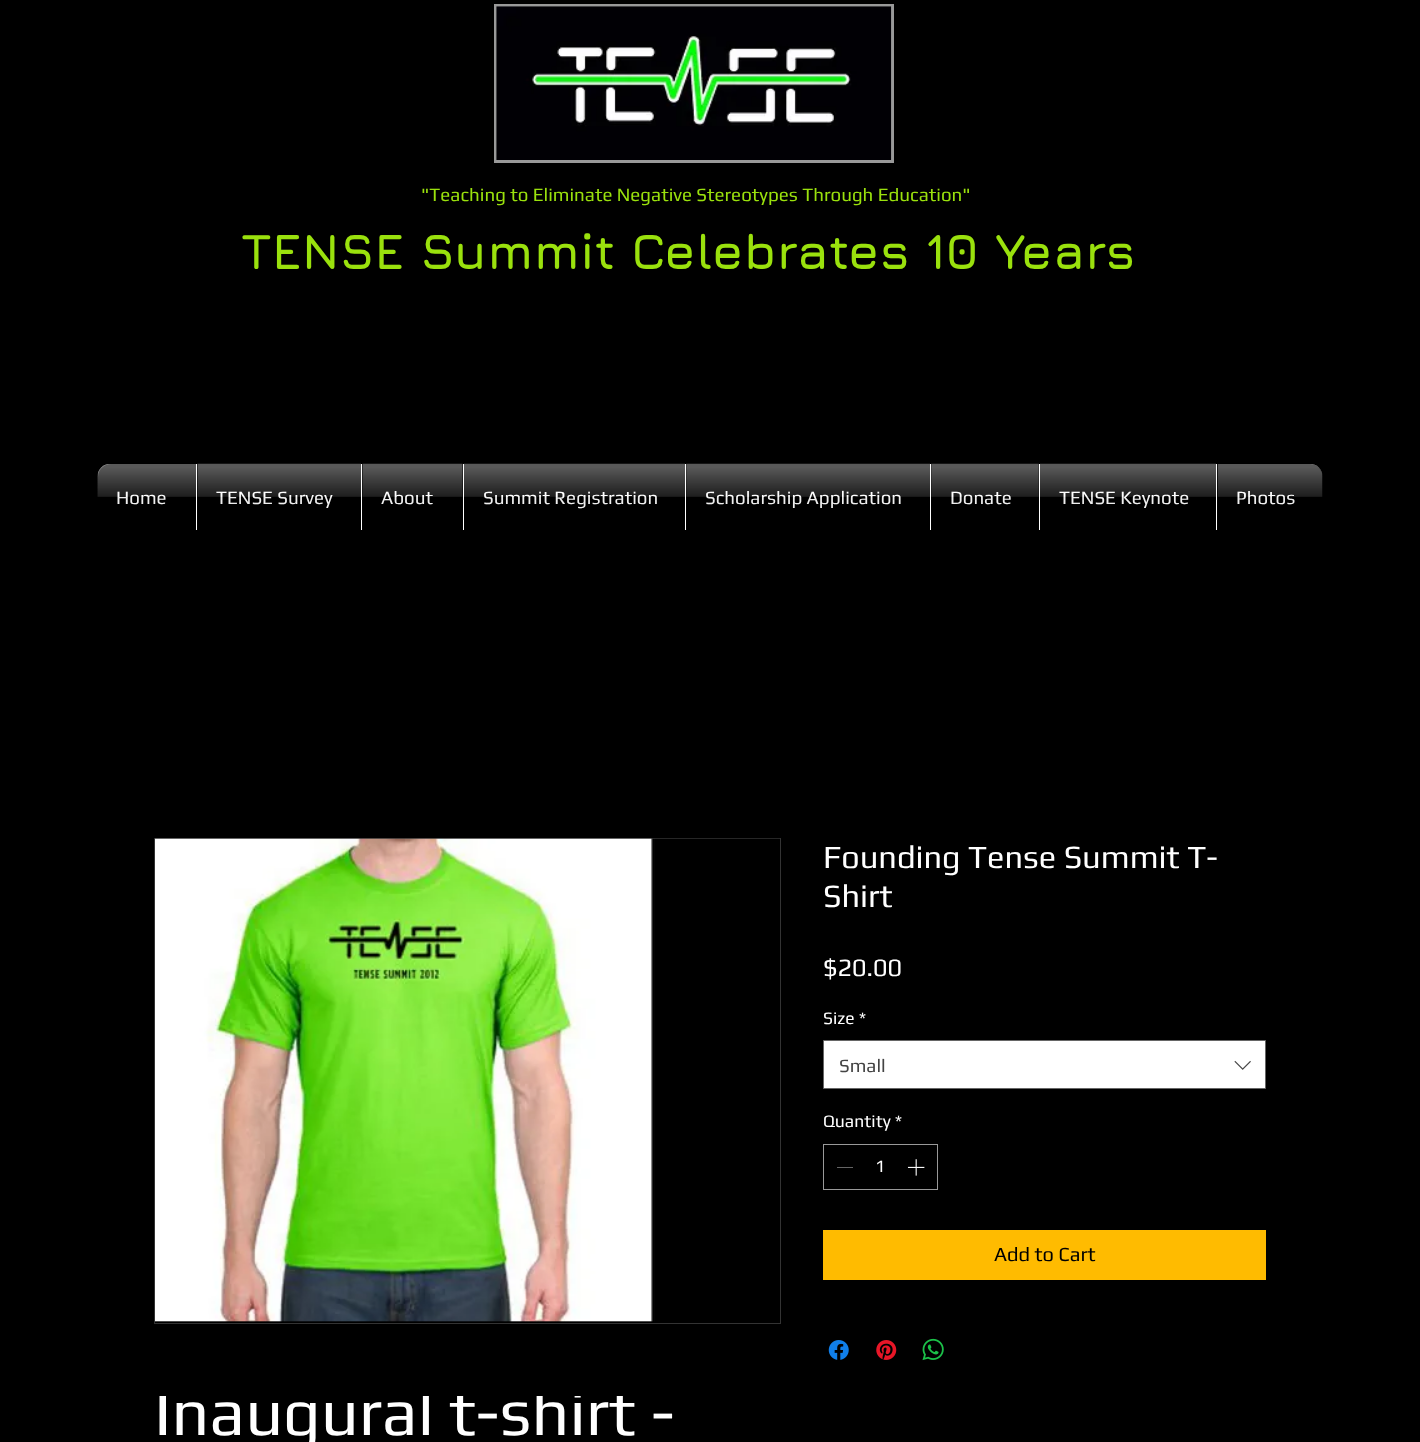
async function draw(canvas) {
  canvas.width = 1420;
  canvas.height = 1442;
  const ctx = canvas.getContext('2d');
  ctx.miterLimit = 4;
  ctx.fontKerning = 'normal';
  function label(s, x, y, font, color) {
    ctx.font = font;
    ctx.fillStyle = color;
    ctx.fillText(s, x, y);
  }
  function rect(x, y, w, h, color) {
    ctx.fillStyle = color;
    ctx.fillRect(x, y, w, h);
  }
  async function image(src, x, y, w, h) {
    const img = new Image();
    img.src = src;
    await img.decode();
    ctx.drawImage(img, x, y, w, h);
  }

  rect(0, 0, 1420, 1442, '#000');
  rect(494, 4, 400, 159, '#999');
  await image('assets/img1.png', 496, 6, 396, 154);
  label('"Teaching to Eliminate Negative Stereotypes Through Education"', 421, 201, '18.75px Play', '#9ae10d');
  label('TENSE Summit Celebrates 10 Years', 241, 269, 'bold 50px Jura', '#9ae10d');
  await image('assets/img2.png', 97, 464, 1226, 33);
  ctx.fillStyle = '#000';
  ctx.beginPath();
  ctx.roundRect(98, 464, 98, 66, [13, 0, 0, 13]);
  ctx.fill();
  label('Home', 116, 504, '18.75px Play', '#fff');
  await image('assets/img3.png', 97, 464, 99, 40);
  rect(197, 464, 164, 33, '#000');
  rect(196, 464, 1, 66, '#fff');
  label('TENSE Survey', 216, 504, '18.75px Play', '#fff');
  await image('assets/img4.png', 197, 463, 164, 45);
  rect(362, 464, 101, 33, '#000');
  rect(361, 464, 1, 66, '#fff');
  label('About', 381, 504, '18.75px Play', '#fff');
  await image('assets/img5.png', 362, 463, 101, 41);
  rect(464, 464, 221, 33, '#000');
  rect(463, 464, 1, 66, '#fff');
  label('Summit Registration', 483, 504, '18.75px Play', '#fff');
  await image('assets/img6.png', 463, 463, 222, 45);
  rect(686, 464, 244, 33, '#000');
  rect(685, 464, 1, 66, '#fff');
  label('Scholarship Application', 705, 504, '18.75px Play', '#fff');
  await image('assets/img7.png', 686, 463, 244, 45);
  rect(931, 464, 108, 33, '#000');
  rect(930, 464, 1, 66, '#fff');
  label('Donate', 950, 504, '18.75px Play', '#fff');
  await image('assets/img8.png', 931, 463, 108, 41);
  rect(1040, 464, 176, 33, '#000');
  rect(1039, 464, 1, 66, '#fff');
  label('TENSE Keynote', 1059, 504, '18.75px Play', '#fff');
  await image('assets/img9.png', 1040, 463, 176, 45);
  ctx.fillStyle = '#000';
  ctx.beginPath();
  ctx.roundRect(1216, 464, 107, 66, [0, 13, 13, 0]);
  ctx.fill();
  rect(1216, 464, 1, 66, '#fff');
  label('Photos', 1236, 504, '18.75px Play', '#fff');
  await image('assets/img10.png', 1217, 464, 106, 40);
  label('Founding Tense Summit T-', 823, 868, '32.5px Play', '#fff');
  label('Shirt', 823, 907, '32.5px Play', '#fff');
  label('$20.00', 823, 976, '25px Play', '#fff');
  label('Size', 823, 1024, '17.5px Play', '#fff');
  label('*', 859, 1024, '17.5px Play', '#fff');
  ctx.beginPath();
  ctx.rect(823.5, 1040.5, 442, 48);
  ctx.fill();
  ctx.strokeStyle = '#666';
  ctx.stroke();
  label('Small', 839, 1072, '18.75px Play', '#444');
  await image('assets/img11.png', 1234, 1060, 17, 10);
  label('Quantity', 823, 1127, '17.5px Play', '#fff');
  label('*', 895, 1127, '17.5px Play', '#fff');
  ctx.strokeStyle = '#999';
  ctx.strokeRect(823.5, 1144.5, 114, 45);
  rect(837, 1167, 16, 1, '#646464');
  label('1', 875, 1172, '17.5px Play', '#fff');
  await image('assets/img12.png', 907, 1159, 18, 17);
  rect(823, 1230, 443, 50, '#fb0');
  label('Add to Cart', 994, 1261, '20px Play', '#000');
  await image('assets/img13.png', 828, 1340, 21, 20);
  await image('assets/img14.png', 876, 1340, 21, 20);
  await image('assets/img15.png', 922, 1338, 22, 23);
  ctx.strokeStyle = '#333';
  ctx.strokeRect(154.5, 838.5, 626, 485);
  await image('assets/img16.png', 155, 838, 625, 484);
  ctx.save();
  ctx.beginPath();
  ctx.rect(154, 1396, 625, 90);
  ctx.clip();
  label('Inaugural t-shirt -', 154, 1435, '66.25px Play', '#fff');
  ctx.restore();
}

draw(document.querySelector('canvas'));
